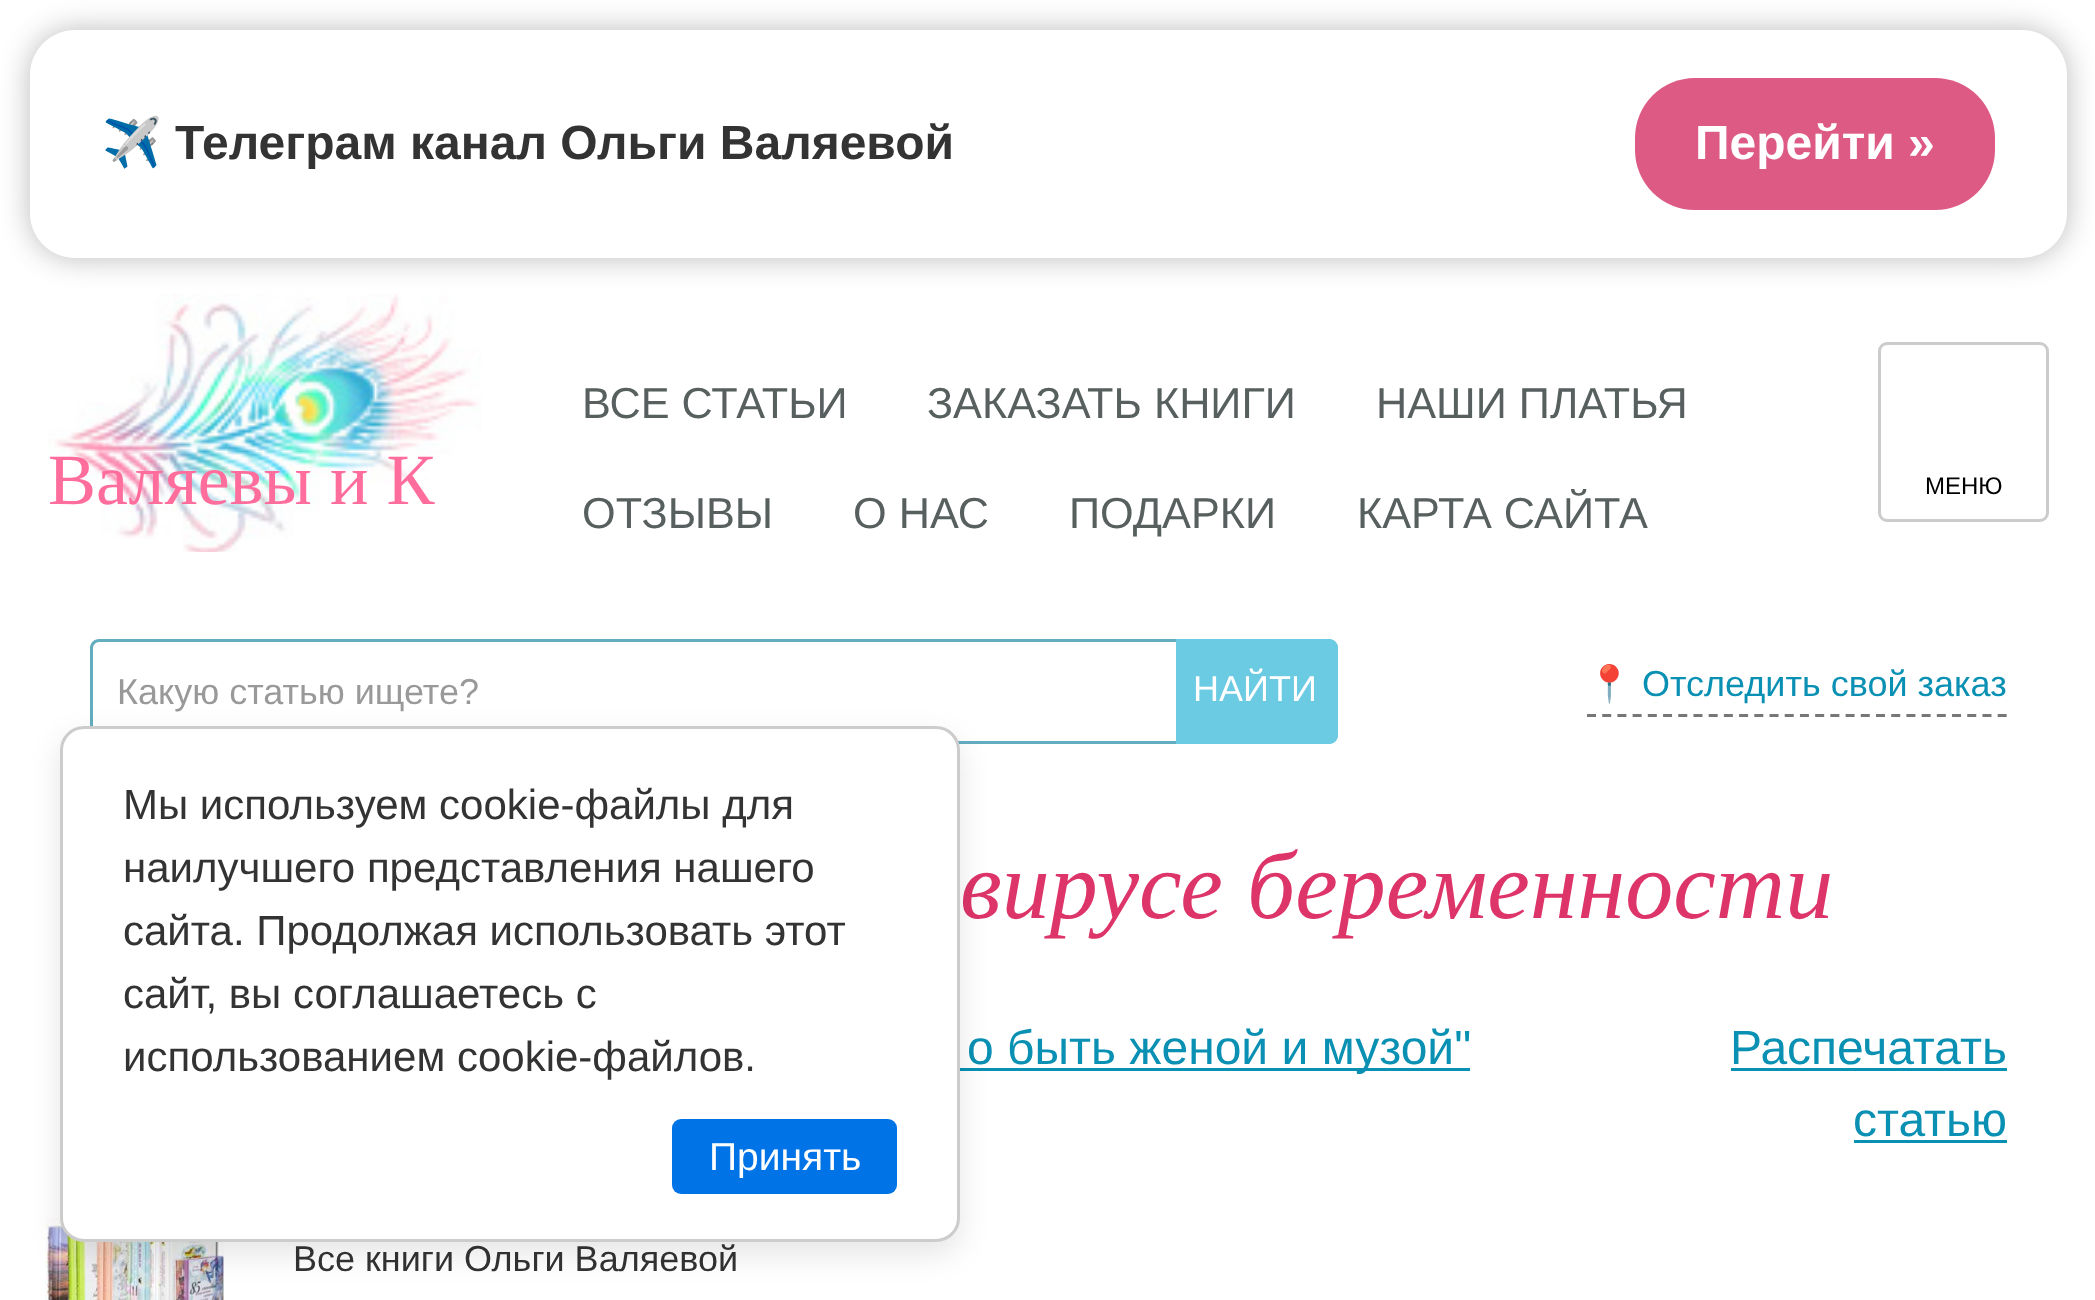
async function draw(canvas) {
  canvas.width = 2095;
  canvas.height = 1300;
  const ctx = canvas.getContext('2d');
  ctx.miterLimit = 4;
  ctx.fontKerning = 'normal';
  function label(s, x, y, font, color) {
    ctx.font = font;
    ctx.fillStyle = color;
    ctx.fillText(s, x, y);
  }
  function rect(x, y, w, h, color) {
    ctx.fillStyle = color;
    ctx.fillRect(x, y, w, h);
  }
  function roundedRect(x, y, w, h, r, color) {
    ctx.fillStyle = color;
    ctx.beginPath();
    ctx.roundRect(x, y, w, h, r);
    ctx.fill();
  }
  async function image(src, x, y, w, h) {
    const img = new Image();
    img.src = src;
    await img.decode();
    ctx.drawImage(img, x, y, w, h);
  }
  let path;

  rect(0, 0, 2095, 1300, '#fff');
  await image('assets/img1.png', 48, 294, 434, 258);
  ctx.fillStyle = '#bbb';
  ctx.filter = 'blur(15px)';
  ctx.beginPath();
  ctx.roundRect(30, 30, 2037, 228, 45);
  ctx.fill();
  ctx.filter = 'none';
  roundedRect(30, 30, 2037, 228, 45, '#fff');
  label('✈️', 102, 159, 'bold 48px Noto Color Emoji', '#333');
  label('Телеграм канал Ольги Валяевой', 175, 159, 'bold 48px Liberation Sans', '#333');
  roundedRect(1635, 78, 360, 132, 60, '#dd5a85');
  label('Перейти »', 1695, 159, 'bold 48px Liberation Sans', '#fff');
  label('Валяевы и К', 48, 504, '72px Liberation Serif', '#ff6d9d');
  label('ВСЕ СТАТЬИ', 582, 418, '43.25px Liberation Sans', '#57605f');
  label('ЗАКАЗАТЬ КНИГИ', 927, 418, '43.25px Liberation Sans', '#57605f');
  label('НАШИ ПЛАТЬЯ', 1376, 418, '43.25px Liberation Sans', '#57605f');
  label('ОТЗЫВЫ', 582, 528, '43.25px Liberation Sans', '#57605f');
  label('О НАС', 853, 528, '43.25px Liberation Sans', '#57605f');
  label('ПОДАРКИ', 1069, 528, '43.25px Liberation Sans', '#57605f');
  label('КАРТА САЙТА', 1357, 528, '43.25px Liberation Sans', '#57605f');
  ctx.beginPath();
  ctx.roundRect(1879.5, 343.5, 168, 177, 7.5);
  ctx.strokeStyle = '#ccc';
  ctx.lineWidth = 3;
  ctx.stroke();
  label('МЕНЮ', 1925, 494, '24px Liberation Sans', '#000');
  ctx.fillStyle = '#63adc0';
  path = new Path2D('M99 639H1176V744H99C94 744 90 740 90 735V648C90 643 94 639 99 639ZM99 642H1176V741H99C96 741 93 738 93 735V648C93 645 96 642 99 642Z');
  ctx.fill(path, 'evenodd');
  label('Какую статью ищете?', 117, 704, '36px Liberation Sans', '#999');
  ctx.fillStyle = '#6bcbe3';
  ctx.beginPath();
  ctx.roundRect(1176, 639, 162, 105, [0, 9, 9, 0]);
  ctx.fill();
  path = new Path2D('M1176 639H1329C1334 639 1338 643 1338 648V735C1338 740 1334 744 1329 744H1176ZM1176 642H1329C1332 642 1335 645 1335 648V735C1335 738 1332 741 1329 741H1176Z');
  ctx.fill(path, 'evenodd');
  label('НАЙТИ', 1193, 701, '36px Liberation Sans', '#fff');
  path = new Path2D('M1587 715.5H2007');
  ctx.strokeStyle = '#777';
  ctx.setLineDash([9, 6.21]);
  ctx.stroke(path);
  label('📍', 1587, 696, '36px Noto Color Emoji', '#0990b3');
  label('Отследить свой заказ', 1642, 696, '36px Liberation Sans', '#0990b3');
  label('вирусе беременности', 960, 918, 'italic 96px Liberation Serif', '#dd3469');
  rect(960, 1068, 510, 3, '#0990b3');
  label('о быть женой и музой"', 967, 1064, '48px Liberation Sans', '#0990b3');
  label('Распечатать', 1730, 1064, '48px Liberation Sans', '#0990b3');
  rect(1731, 1068, 276, 3, '#0990b3');
  label('статью', 1853, 1136, '48px Liberation Sans', '#0990b3');
  rect(1854, 1140, 153, 3, '#0990b3');
  await image('assets/img2.png', 45, 1218, 179, 82);
  label('Все книги Ольги Валяевой', 293, 1271, '36px Liberation Sans', '#333');
  ctx.fillStyle = '#0000001a';
  ctx.filter = 'blur(15px)';
  ctx.beginPath();
  ctx.roundRect(60, 738, 900, 516, 24);
  ctx.fill();
  ctx.filter = 'none';
  ctx.fillStyle = '#fff';
  ctx.beginPath();
  ctx.roundRect(61.5, 727.5, 897, 513, 22.5);
  ctx.fill();
  ctx.strokeStyle = '#ccc';
  ctx.setLineDash([]);
  ctx.stroke();
  label('Мы используем cookie-файлы для', 123, 819, '42px Liberation Sans', '#333');
  label('наилучшего представления нашего', 123, 882, '42px Liberation Sans', '#333');
  label('сайта. Продолжая использовать этот', 123, 945, '42px Liberation Sans', '#333');
  label('сайт, вы соглашаетесь с', 123, 1008, '42px Liberation Sans', '#333');
  label('использованием cookie-файлов.', 123, 1071, '42px Liberation Sans', '#333');
  roundedRect(672, 1119, 225, 75, 9, '#0073e6');
  label('Принять', 709, 1170, '39px Liberation Sans', '#fff');
}

draw(document.querySelector('canvas'));
